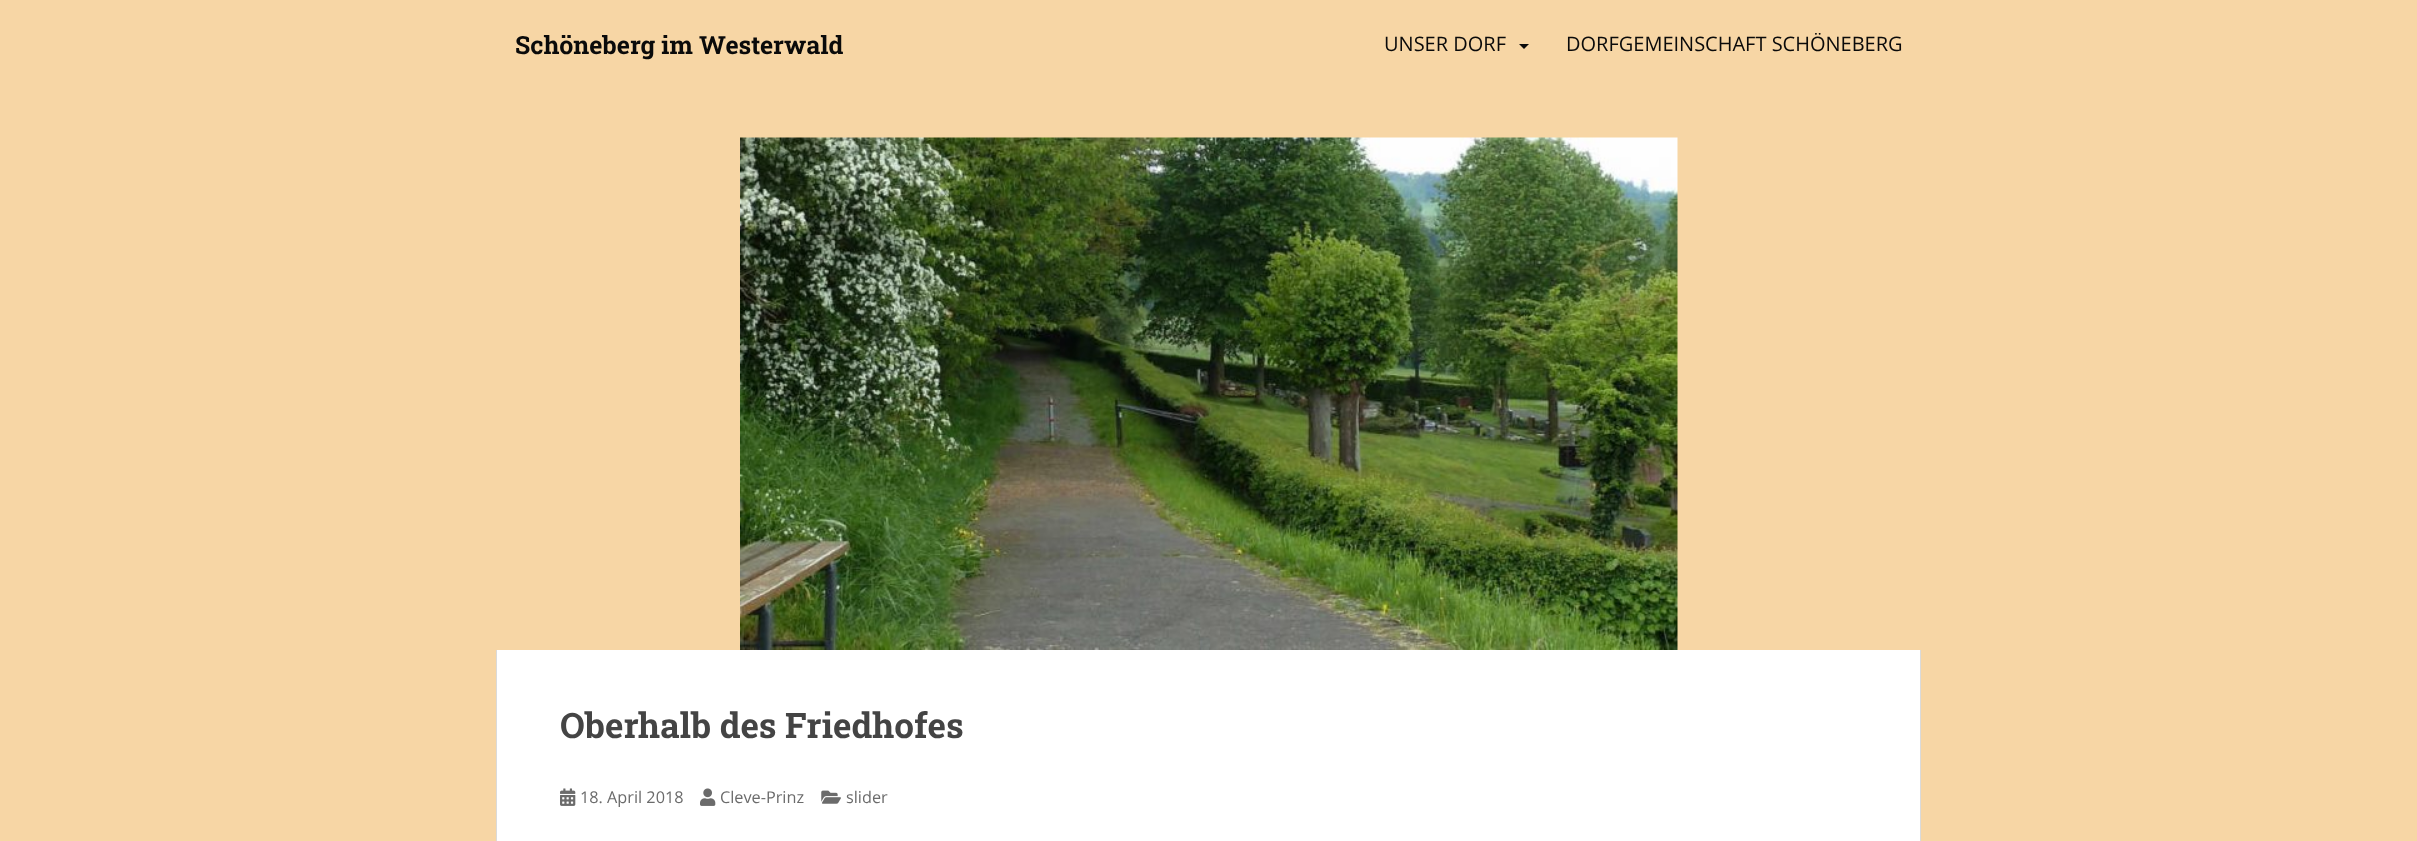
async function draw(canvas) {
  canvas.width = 2417;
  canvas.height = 841;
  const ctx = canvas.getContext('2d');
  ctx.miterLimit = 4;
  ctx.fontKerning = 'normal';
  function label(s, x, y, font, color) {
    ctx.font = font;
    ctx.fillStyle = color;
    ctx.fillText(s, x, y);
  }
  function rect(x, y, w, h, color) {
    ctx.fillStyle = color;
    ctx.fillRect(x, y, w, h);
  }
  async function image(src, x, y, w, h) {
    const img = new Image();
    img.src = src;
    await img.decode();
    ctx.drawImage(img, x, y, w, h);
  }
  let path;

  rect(0, 0, 2417, 841, '#f7d6a5');
  label('Schöneberg im Westerwald', 515, 54, 'bold 25px Roboto Slab', '#0a0a0a');
  label('UNSER DORF', 1384, 51, '20px Open Sans', '#0a0a0a');
  path = new Path2D('M1519 44H1529L1524 49Z');
  ctx.fill(path);
  label('DORFGEMEINSCHAFT SCHÖNEBERG', 1566, 51, '20px Open Sans', '#0a0a0a');
  await image('assets/img1.png', 740, 137, 938, 513);
  rect(497, 650, 1423, 191, '#fff');
  rect(1920, 650, 1, 191, '#dadada');
  rect(496, 650, 1, 191, '#dadada');
  label('Oberhalb des Friedhofes', 560, 738, 'bold 35px Roboto Slab', '#444');
  await image('assets/img2.png', 560, 788, 16, 18);
  label('18. April 2018', 580, 803, '16.25px Open Sans', '#6b6b6b');
  await image('assets/img3.png', 700, 788, 16, 18);
  label('Cleve-Prinz', 720, 803, '16.25px Open Sans', '#6b6b6b');
  await image('assets/img4.png', 821, 790, 20, 14);
  label('slider', 846, 803, '16.25px Open Sans', '#6b6b6b');
}

draw(document.querySelector('canvas'));
